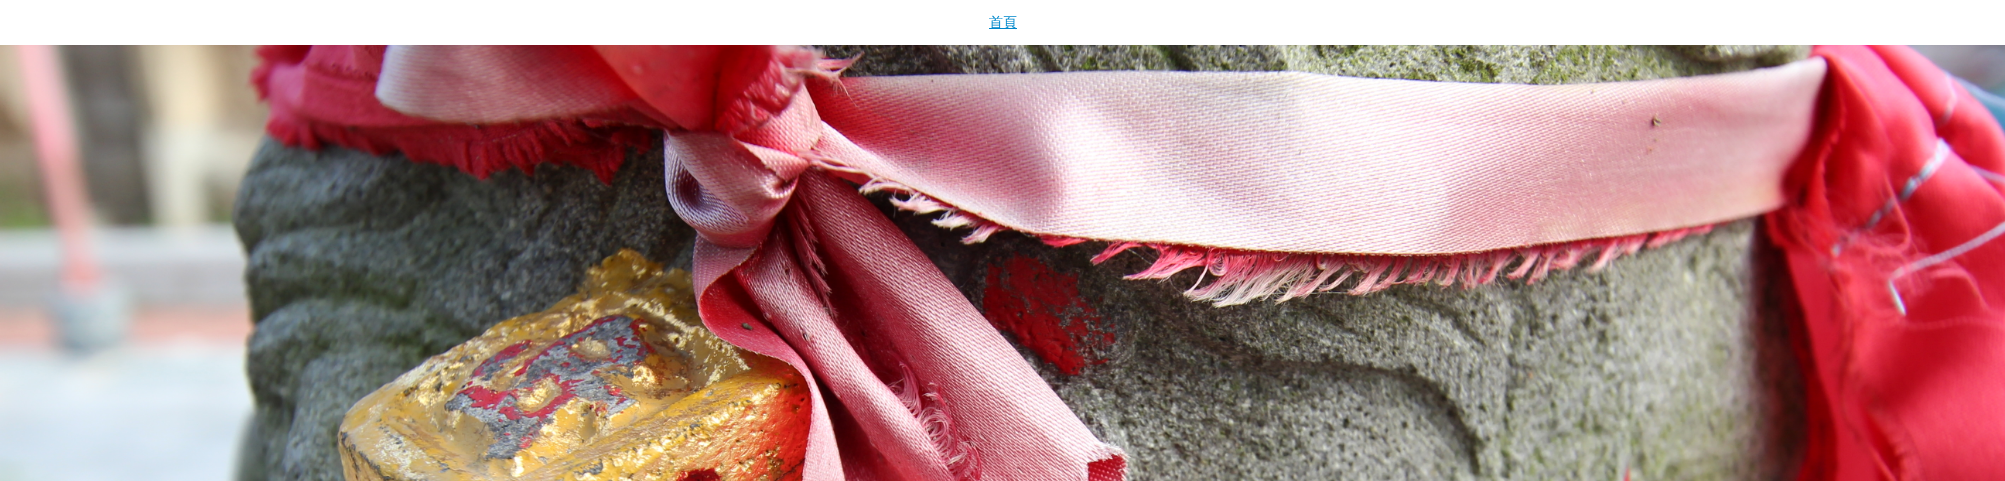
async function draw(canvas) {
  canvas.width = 2005;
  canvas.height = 481;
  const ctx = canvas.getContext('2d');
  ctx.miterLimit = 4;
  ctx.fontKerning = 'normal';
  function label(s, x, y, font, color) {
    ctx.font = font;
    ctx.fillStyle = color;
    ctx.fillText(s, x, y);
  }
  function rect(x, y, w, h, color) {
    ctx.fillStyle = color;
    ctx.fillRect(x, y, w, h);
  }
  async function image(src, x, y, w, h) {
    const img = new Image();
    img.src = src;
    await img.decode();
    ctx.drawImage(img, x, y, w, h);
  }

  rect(0, 0, 2005, 481, '#fff');
  rect(989, 28, 28, 1, '#08c');
  label('首頁', 989, 27, '500 14px WenQuanYi Zen Hei', '#08c');
  await image('assets/img1.png', 0, 45, 2005, 436);
}

draw(document.querySelector('canvas'));
